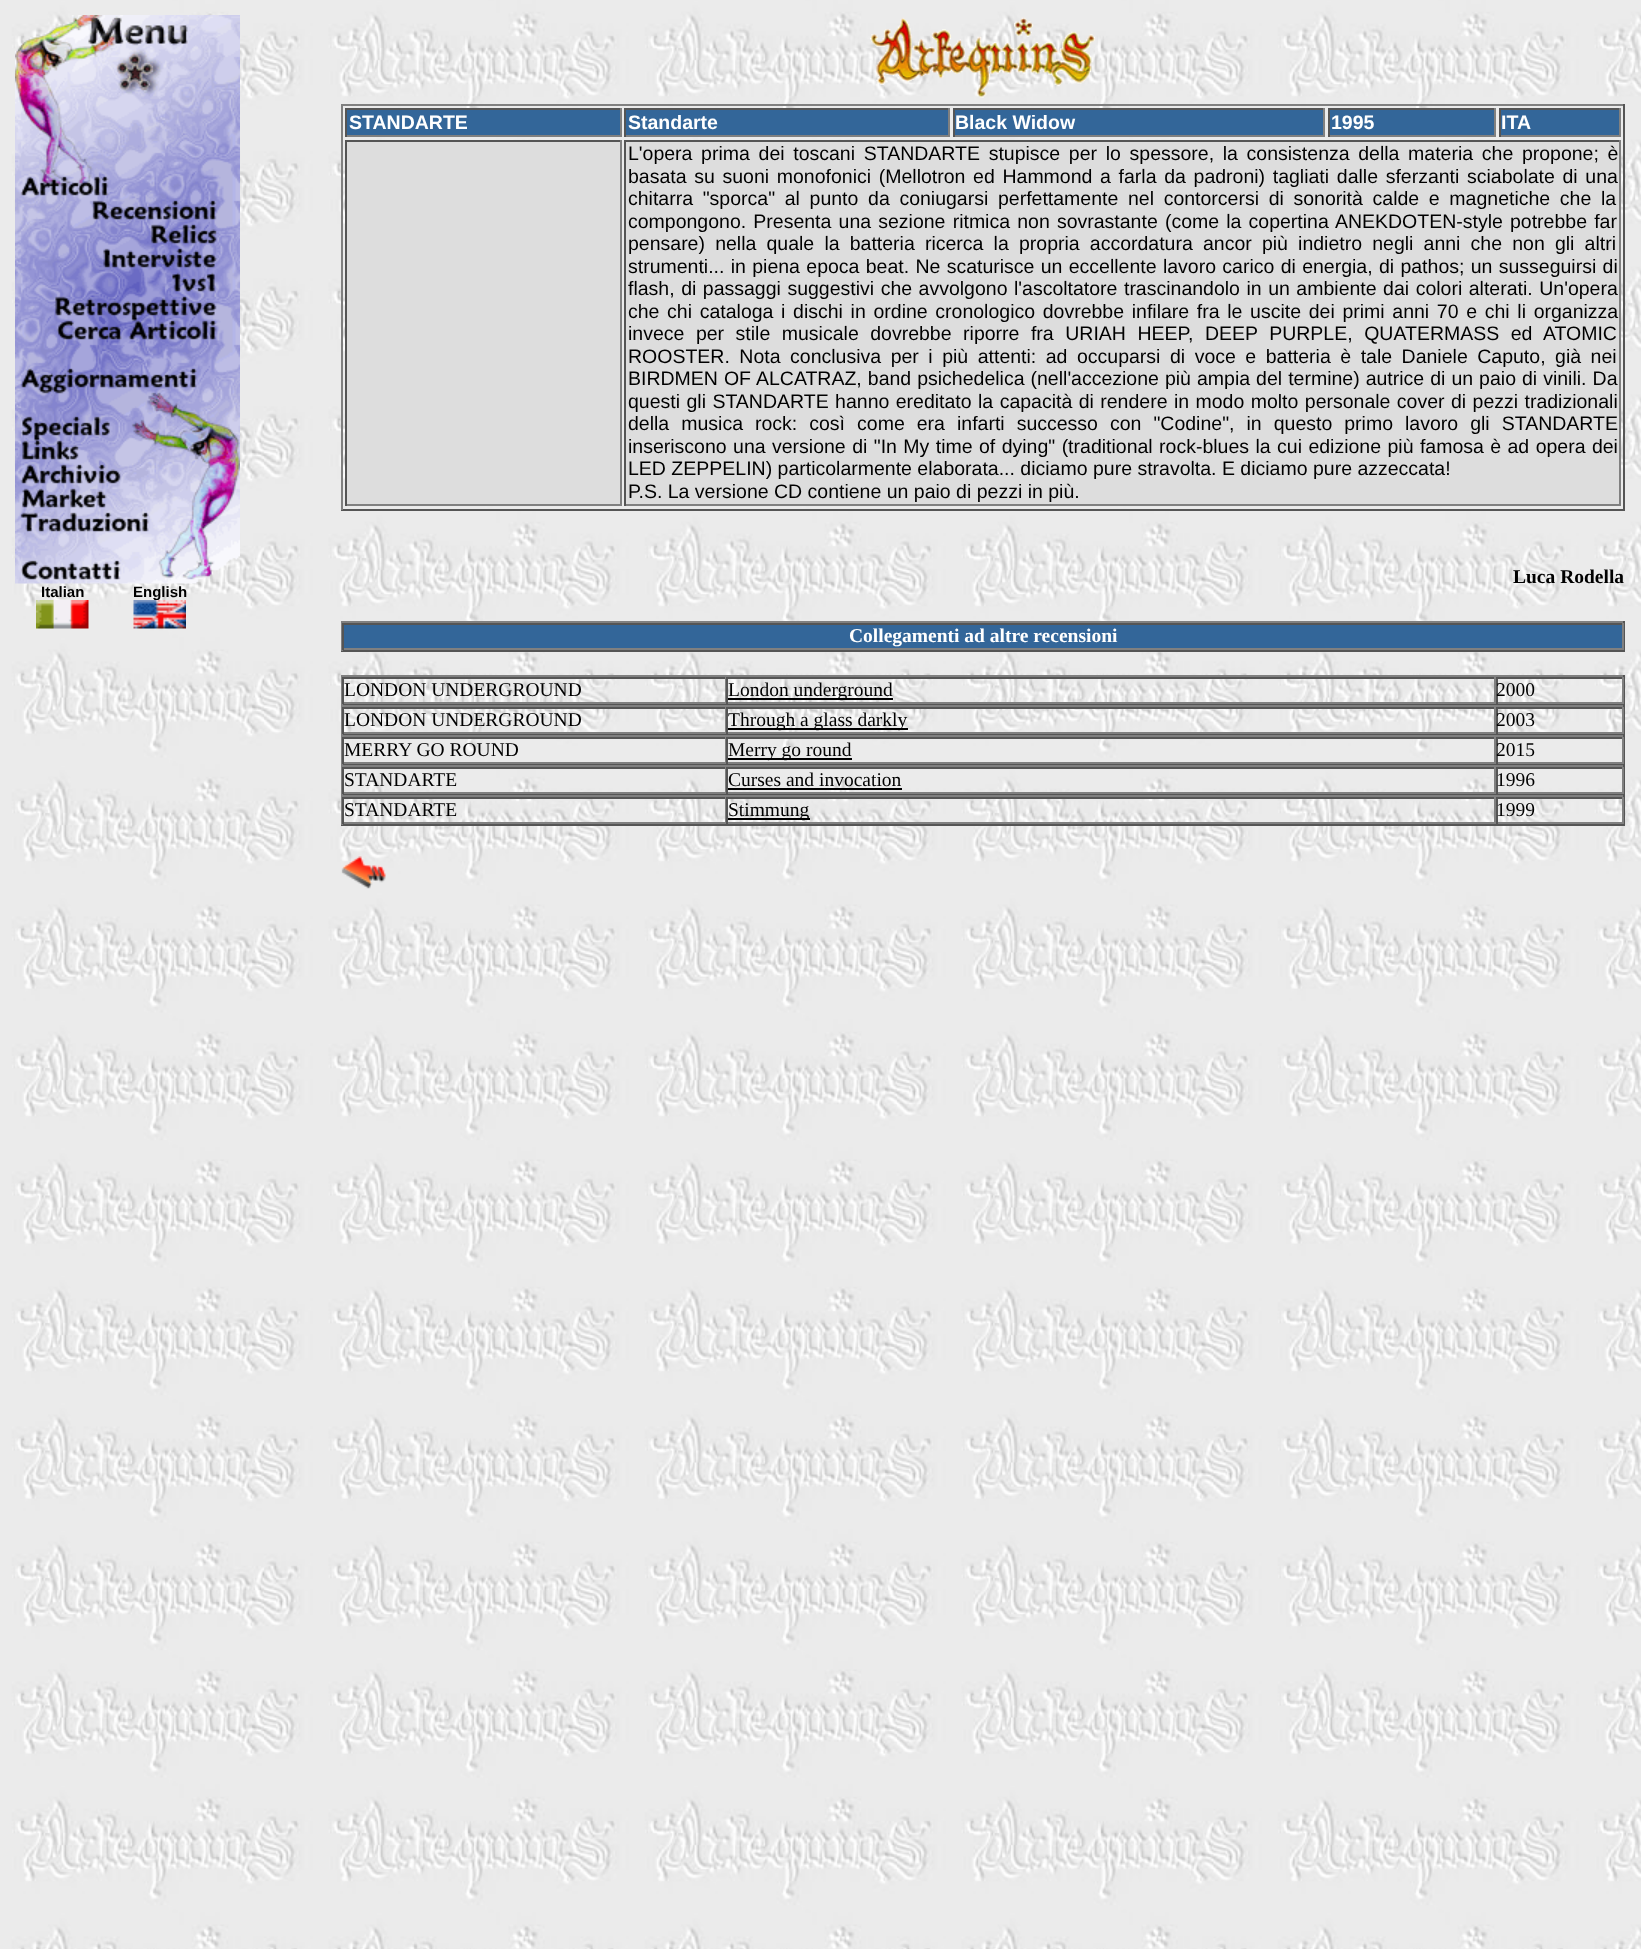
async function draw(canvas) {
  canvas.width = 1641;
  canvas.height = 1949;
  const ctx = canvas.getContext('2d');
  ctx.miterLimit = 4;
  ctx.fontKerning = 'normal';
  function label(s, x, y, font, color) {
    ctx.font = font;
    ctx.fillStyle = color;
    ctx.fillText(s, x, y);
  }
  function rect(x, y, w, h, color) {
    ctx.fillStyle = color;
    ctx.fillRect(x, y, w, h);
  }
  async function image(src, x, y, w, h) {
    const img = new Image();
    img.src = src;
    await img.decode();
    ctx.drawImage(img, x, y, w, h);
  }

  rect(0, 0, 1641, 1949, '#fff');
  await image('assets/img1.png', 0, 0, 1641, 1949);
  await image('assets/img2.png', 15, 15, 225, 569);
  label('Italian', 41, 597, 'bold 15px Liberation Sans', '#000');
  label('English', 133, 597, 'bold 15px Liberation Sans', '#000');
  await image('assets/img3.png', 36, 600, 53, 29);
  await image('assets/img4.png', 133, 600, 53, 29);
  await image('assets/img5.png', 870, 17, 225, 81);
  rect(341, 104, 1284, 2, '#808080');
  rect(1623, 104, 2, 406, '#555');
  rect(341, 509, 1284, 2, '#555');
  rect(341, 104, 2, 406, '#808080');
  rect(347, 110, 273, 25, '#369');
  rect(345, 108, 276, 2, '#555');
  rect(620, 108, 2, 29, '#808080');
  rect(345, 135, 276, 2, '#808080');
  rect(345, 108, 2, 29, '#555');
  label('STANDARTE', 349, 129, 'bold 19.5px Liberation Sans', '#fff');
  rect(626, 110, 322, 25, '#369');
  rect(624, 108, 326, 2, '#555');
  rect(948, 108, 2, 29, '#808080');
  rect(624, 135, 326, 2, '#808080');
  rect(624, 108, 2, 29, '#555');
  label('Standarte', 628, 129, 'bold 19.5px Liberation Sans', '#fff');
  rect(955, 110, 368, 25, '#369');
  rect(953, 108, 372, 2, '#555');
  rect(1323, 108, 2, 29, '#808080');
  rect(953, 135, 372, 2, '#808080');
  rect(953, 108, 2, 29, '#555');
  label('Black Widow', 955, 129, 'bold 19.5px Liberation Sans', '#fff');
  rect(1330, 110, 164, 25, '#369');
  rect(1328, 108, 168, 2, '#555');
  rect(1494, 108, 2, 29, '#808080');
  rect(1328, 135, 168, 2, '#808080');
  rect(1328, 108, 2, 29, '#555');
  label('1995', 1331, 129, 'bold 19.5px Liberation Sans', '#fff');
  rect(1501, 110, 118, 25, '#369');
  rect(1499, 108, 121, 2, '#555');
  rect(1619, 108, 2, 29, '#808080');
  rect(1499, 135, 121, 2, '#808080');
  rect(1499, 108, 2, 29, '#555');
  label('ITA', 1501, 129, 'bold 19.5px Liberation Sans', '#fff');
  rect(347, 142, 273, 362, '#ddd');
  rect(345, 140, 276, 2, '#555');
  rect(620, 140, 2, 366, '#808080');
  rect(345, 504, 276, 2, '#808080');
  rect(345, 140, 2, 366, '#555');
  rect(626, 142, 993, 362, '#ddd');
  rect(624, 140, 996, 2, '#555');
  rect(1619, 140, 2, 366, '#808080');
  rect(624, 504, 996, 2, '#808080');
  rect(624, 140, 2, 366, '#555');
  ctx.wordSpacing = '3.25px';
  label('L\'opera prima dei toscani STANDARTE stupisce per lo spessore, la consistenza della materia che propone; è', 628, 160, '19.5px Liberation Sans', '#000');
  ctx.wordSpacing = '2.25px';
  label('basata su suoni monofonici (Mellotron ed Hammond a farla da padroni) tagliati dalle sferzanti sciabolate di una', 628, 183, '19.5px Liberation Sans', '#000');
  ctx.wordSpacing = '4.25px';
  label('chitarra "sporca" al punto da coniugarsi perfettamente nel contorcersi di sonorità calde e magnetiche che la', 628, 205, '19.5px Liberation Sans', '#000');
  ctx.wordSpacing = '1.75px';
  label('compongono. Presenta una sezione ritmica non sovrastante (come la copertina ANEKDOTEN-style potrebbe far', 628, 228, '19.5px Liberation Sans', '#000');
  ctx.wordSpacing = '4.75px';
  label('pensare) nella quale la batteria ricerca la propria accordatura ancor più indietro negli anni che non gli altri', 628, 250, '19.5px Liberation Sans', '#000');
  ctx.wordSpacing = '0.9px';
  label('strumenti... in piena epoca beat. Ne scaturisce un eccellente lavoro carico di energia, di pathos; un susseguirsi di', 628, 273, '19.5px Liberation Sans', '#000');
  ctx.wordSpacing = '1.1px';
  label('flash, di passaggi suggestivi che avvolgono l\'ascoltatore trascinandolo in un ambiente dai colori alterati. Un\'opera', 628, 295, '19.5px Liberation Sans', '#000');
  ctx.wordSpacing = '2.25px';
  label('che chi cataloga i dischi in ordine cronologico dovrebbe infilare fra le uscite dei primi anni 70 e chi li organizza', 628, 318, '19.5px Liberation Sans', '#000');
  ctx.wordSpacing = '6.1px';
  label('invece per stile musicale dovrebbe riporre fra URIAH HEEP, DEEP PURPLE, QUATERMASS ed ATOMIC', 628, 340, '19.5px Liberation Sans', '#000');
  ctx.wordSpacing = '4.1px';
  label('ROOSTER. Nota conclusiva per i più attenti: ad occuparsi di voce e batteria è tale Daniele Caputo, già nei', 628, 363, '19.5px Liberation Sans', '#000');
  ctx.wordSpacing = '0.6px';
  label('BIRDMEN OF ALCATRAZ, band psichedelica (nell\'accezione più ampia del termine) autrice di un paio di vinili. Da', 628, 385, '19.5px Liberation Sans', '#000');
  ctx.wordSpacing = '1px';
  label('questi gli STANDARTE hanno ereditato la capacità di rendere in modo molto personale cover di pezzi tradizionali', 628, 408, '19.5px Liberation Sans', '#000');
  ctx.wordSpacing = '6.6px';
  label('della musica rock: così come era infarti successo con "Codine", in questo primo lavoro gli STANDARTE', 628, 430, '19.5px Liberation Sans', '#000');
  ctx.wordSpacing = '1px';
  label('inseriscono una versione di "In My time of dying" (traditional rock-blues la cui edizione più famosa è ad opera dei', 628, 453, '19.5px Liberation Sans', '#000');
  ctx.wordSpacing = '0px';
  label('LED ZEPPELIN) particolarmente elaborata... diciamo pure stravolta. E diciamo pure azzeccata!', 628, 475, '19.5px Liberation Sans', '#000');
  label('P.S. La versione CD contiene un paio di pezzi in più.', 628, 498, '19.5px Liberation Sans', '#000');
  label('Luca Rodella', 1513, 583, 'bold 19.5px Liberation Serif', '#000');
  rect(341, 621, 1284, 2, '#808080');
  rect(1623, 621, 2, 30, '#555');
  rect(341, 650, 1284, 2, '#555');
  rect(341, 621, 2, 30, '#808080');
  rect(344, 625, 1278, 23, '#369');
  rect(342, 623, 1281, 2, '#555');
  rect(1622, 623, 2, 27, '#808080');
  rect(342, 648, 1281, 2, '#808080');
  rect(342, 623, 2, 27, '#555');
  label('Collegamenti ad altre recensioni', 849, 642, 'bold 19.5px Liberation Serif', '#fff');
  rect(341, 675, 1284, 2, '#808080');
  rect(1623, 675, 2, 30, '#555');
  rect(341, 704, 1284, 1, '#555');
  rect(341, 675, 2, 30, '#808080');
  rect(342, 677, 1281, 2, '#555');
  rect(725, 677, 1, 27, '#808080');
  rect(342, 702, 384, 2, '#808080');
  rect(342, 677, 2, 27, '#555');
  label('LONDON UNDERGROUND', 344, 696, '19.5px Liberation Serif', '#000');
  rect(1494, 677, 2, 27, '#808080');
  rect(726, 702, 770, 2, '#808080');
  rect(726, 677, 2, 27, '#555');
  rect(728, 698, 165, 2, '#000');
  label('London underground', 728, 696, '19.5px Liberation Serif', '#000');
  rect(1622, 677, 2, 27, '#808080');
  rect(1496, 702, 127, 2, '#808080');
  rect(1496, 677, 2, 27, '#555');
  label('2000', 1496, 696, '19.5px Liberation Serif', '#000');
  rect(341, 705, 1284, 2, '#808080');
  rect(1623, 705, 2, 30, '#555');
  rect(341, 734, 1284, 1, '#555');
  rect(341, 705, 2, 30, '#808080');
  rect(342, 707, 1281, 2, '#555');
  rect(725, 707, 1, 27, '#808080');
  rect(342, 732, 384, 2, '#808080');
  rect(342, 707, 2, 27, '#555');
  label('LONDON UNDERGROUND', 344, 726, '19.5px Liberation Serif', '#000');
  rect(1494, 707, 2, 27, '#808080');
  rect(726, 732, 770, 2, '#808080');
  rect(726, 707, 2, 27, '#555');
  rect(728, 728, 180, 2, '#000');
  label('Through a glass darkly', 728, 726, '19.5px Liberation Serif', '#000');
  rect(1622, 707, 2, 27, '#808080');
  rect(1496, 732, 127, 2, '#808080');
  rect(1496, 707, 2, 27, '#555');
  label('2003', 1496, 726, '19.5px Liberation Serif', '#000');
  rect(341, 735, 1284, 2, '#808080');
  rect(1623, 735, 2, 30, '#555');
  rect(341, 764, 1284, 1, '#555');
  rect(341, 735, 2, 30, '#808080');
  rect(342, 737, 1281, 2, '#555');
  rect(725, 737, 1, 27, '#808080');
  rect(342, 762, 384, 2, '#808080');
  rect(342, 737, 2, 27, '#555');
  label('MERRY GO ROUND', 344, 756, '19.5px Liberation Serif', '#000');
  rect(1494, 737, 2, 27, '#808080');
  rect(726, 762, 770, 2, '#808080');
  rect(726, 737, 2, 27, '#555');
  rect(728, 758, 124, 2, '#000');
  label('Merry go round', 728, 756, '19.5px Liberation Serif', '#000');
  rect(1622, 737, 2, 27, '#808080');
  rect(1496, 762, 127, 2, '#808080');
  rect(1496, 737, 2, 27, '#555');
  label('2015', 1496, 756, '19.5px Liberation Serif', '#000');
  rect(341, 765, 1284, 2, '#808080');
  rect(1623, 765, 2, 30, '#555');
  rect(341, 794, 1284, 1, '#555');
  rect(341, 765, 2, 30, '#808080');
  rect(342, 767, 1281, 2, '#555');
  rect(725, 767, 1, 27, '#808080');
  rect(342, 792, 384, 2, '#808080');
  rect(342, 767, 2, 27, '#555');
  label('STANDARTE', 344, 786, '19.5px Liberation Serif', '#000');
  rect(1494, 767, 2, 27, '#808080');
  rect(726, 792, 770, 2, '#808080');
  rect(726, 767, 2, 27, '#555');
  label('Curses and invocation', 728, 786, '19.5px Liberation Serif', '#000');
  rect(728, 788, 174, 2, '#000');
  rect(1622, 767, 2, 27, '#808080');
  rect(1496, 792, 127, 2, '#808080');
  rect(1496, 767, 2, 27, '#555');
  label('1996', 1496, 786, '19.5px Liberation Serif', '#000');
  rect(341, 795, 1284, 2, '#808080');
  rect(1623, 795, 2, 30, '#555');
  rect(341, 824, 1284, 2, '#555');
  rect(341, 795, 2, 30, '#808080');
  rect(342, 797, 1281, 2, '#555');
  rect(725, 797, 1, 27, '#808080');
  rect(342, 822, 384, 2, '#808080');
  rect(342, 797, 2, 27, '#555');
  label('STANDARTE', 344, 816, '19.5px Liberation Serif', '#000');
  rect(1494, 797, 2, 27, '#808080');
  rect(726, 822, 770, 2, '#808080');
  rect(726, 797, 2, 27, '#555');
  rect(728, 818, 82, 2, '#000');
  label('Stimmung', 728, 816, '19.5px Liberation Serif', '#000');
  rect(1622, 797, 2, 27, '#808080');
  rect(1496, 822, 127, 2, '#808080');
  rect(1496, 797, 2, 27, '#555');
  label('1999', 1496, 816, '19.5px Liberation Serif', '#000');
  await image('assets/img6.png', 341, 856, 45, 33);
}

draw(document.querySelector('canvas'));
